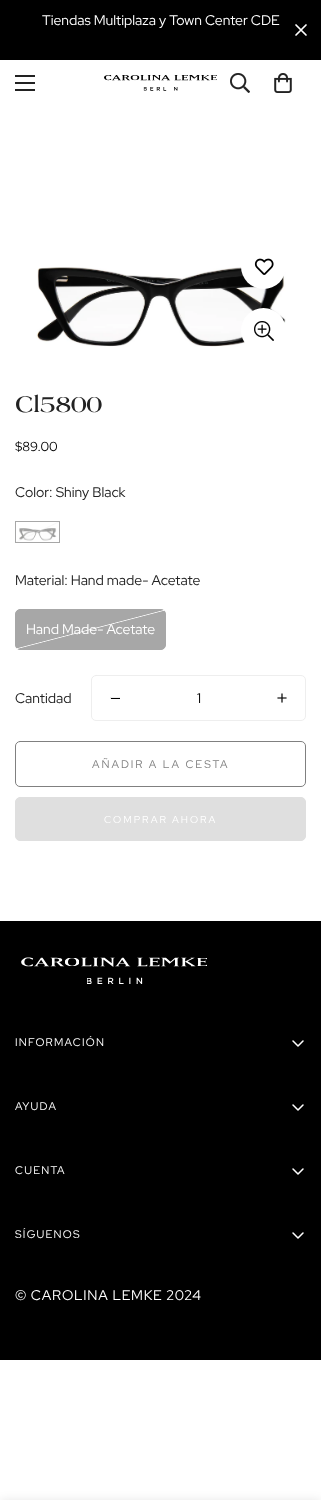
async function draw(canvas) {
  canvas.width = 321;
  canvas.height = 1500;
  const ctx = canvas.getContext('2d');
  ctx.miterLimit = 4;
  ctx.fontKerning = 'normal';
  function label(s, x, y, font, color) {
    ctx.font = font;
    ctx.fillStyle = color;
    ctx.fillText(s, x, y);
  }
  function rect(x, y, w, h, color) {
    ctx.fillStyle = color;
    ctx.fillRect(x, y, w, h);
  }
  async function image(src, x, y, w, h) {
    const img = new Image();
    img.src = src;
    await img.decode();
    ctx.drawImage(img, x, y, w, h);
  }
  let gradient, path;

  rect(0, 0, 321, 1500, '#fff');
  rect(0, 0, 321, 60, '#000');
  label('Tiendas Multiplaza y Town Center CDE', 42, 25, '14px Red Hat Display', '#fff');
  path = new Path2D('M296 35L306 25M296 25L306 35');
  ctx.strokeStyle = '#fff';
  ctx.lineWidth = 1.7;
  ctx.lineCap = 'round';
  ctx.lineJoin = 'round';
  ctx.stroke(path);
  rect(15, 82, 20, 2, '#222');
  rect(15, 75, 20, 2, '#222');
  rect(15, 89, 20, 2, '#222');
  await image('assets/img1.png', 104, 75, 113, 16);
  await image('assets/img2.png', 230, 73, 20, 20);
  await image('assets/img3.png', 274, 73, 18, 20);
  await image('assets/img5.png', 36, 267, 250, 80);
  ctx.fillStyle = '#fff';
  ctx.beginPath();
  ctx.arc(263.5, 266.5, 22.5, 0, 2 * Math.PI);
  ctx.fill();
  await image('assets/img4.png', 254, 258, 20, 17);
  ctx.beginPath();
  ctx.arc(263.5, 330.5, 22.5, 0, 2 * Math.PI);
  ctx.fill();
  await image('assets/img6.png', 254, 321, 20, 20);
  label('Cl5800', 15, 412, 'bold 24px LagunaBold', '#222');
  label('$89.00', 15, 451, '13px Red Hat Display', '#000');
  label('Color: Shiny Black', 15, 497, '14px Red Hat Display', '#222');
  await image('assets/img7.png', 19, 528, 38, 13);
  ctx.strokeStyle = '#a7a7a7';
  ctx.lineWidth = 1;
  ctx.lineJoin = 'miter';
  ctx.strokeRect(15.5, 521.5, 44, 21);
  gradient = ctx.createLinearGradient(30, 516, 45, 548);
  gradient.addColorStop(0.47, '#eeeeee00');
  gradient.addColorStop(0.5, '#eeeeee66');
  gradient.addColorStop(0.53, '#eeeeee00');
  ctx.fillStyle = gradient;
  ctx.fillRect(16, 522, 43, 20);
  label('Material: Hand made- Acetate', 15, 585, '14px Red Hat Display', '#222');
  ctx.fillStyle = '#a7a7a7';
  ctx.beginPath();
  ctx.roundRect(15.5, 609.5, 150, 40, 4.5);
  ctx.fill();
  ctx.stroke();
  gradient = ctx.createLinearGradient(81, 593, 100, 666);
  gradient.addColorStop(0.49, '#f8f8f800');
  gradient.addColorStop(0.5, '#f8f8f8');
  gradient.addColorStop(0.51, '#f8f8f800');
  ctx.fillStyle = gradient;
  ctx.fillRect(16, 610, 149, 39);
  label('Hand Made- Acetate', 26, 634, '14px Red Hat Display', '#fff');
  label('Cantidad', 15, 703, '14px Red Hat Display', '#222');
  ctx.beginPath();
  ctx.roundRect(91.5, 675.5, 214, 45, 4.5);
  ctx.strokeStyle = '#eee';
  ctx.stroke();
  await image('assets/img8.png', 110, 697, 10, 2);
  label('1', 197, 703, '14px Red Hat Display', '#000');
  await image('assets/img9.png', 277, 693, 10, 10);
  ctx.beginPath();
  ctx.roundRect(15.5, 741.5, 290, 45, 4.5);
  ctx.strokeStyle = '#808080';
  ctx.stroke();
  ctx.letterSpacing = '2px';
  label('AÑADIR A LA CESTA', 92, 768, '11px Red Hat Display', '#808080');
  ctx.fillStyle = '#dfdfdf';
  ctx.beginPath();
  ctx.roundRect(15.5, 797.5, 290, 43, 4.5);
  ctx.fill();
  ctx.strokeStyle = '#dfdfdf';
  ctx.stroke();
  label('COMPRAR AHORA', 104, 823, '10px Red Hat Display', '#fff');
  ctx.fillStyle = '#00000017';
  ctx.filter = 'blur(5px)';
  ctx.beginPath();
  ctx.rect(0, 1500, 321, 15);
  ctx.fill();
  ctx.filter = 'none';
  rect(0, 921, 321, 439, '#000');
  await image('assets/img10.png', 21, 957, 186, 27);
  ctx.letterSpacing = '1.25px';
  label('INFORMACIÓN', 15, 1046, '11px Red Hat Display', '#fff');
  await image('assets/img11.png', 292, 1040, 12, 7);
  label('AYUDA', 15, 1110, '11px Red Hat Display', '#fff');
  await image('assets/img11.png', 292, 1104, 12, 7);
  label('CUENTA', 15, 1174, '11px Red Hat Display', '#fff');
  await image('assets/img11.png', 292, 1168, 12, 7);
  label('SÍGUENOS', 15, 1238, '11px Red Hat Display', '#fff');
  await image('assets/img11.png', 292, 1232, 12, 7);
  ctx.letterSpacing = '0.8px';
  label('© CAROLINA LEMKE 2024', 15, 1300, '14px Red Hat Display', '#fff');
}

draw(document.querySelector('canvas'));
